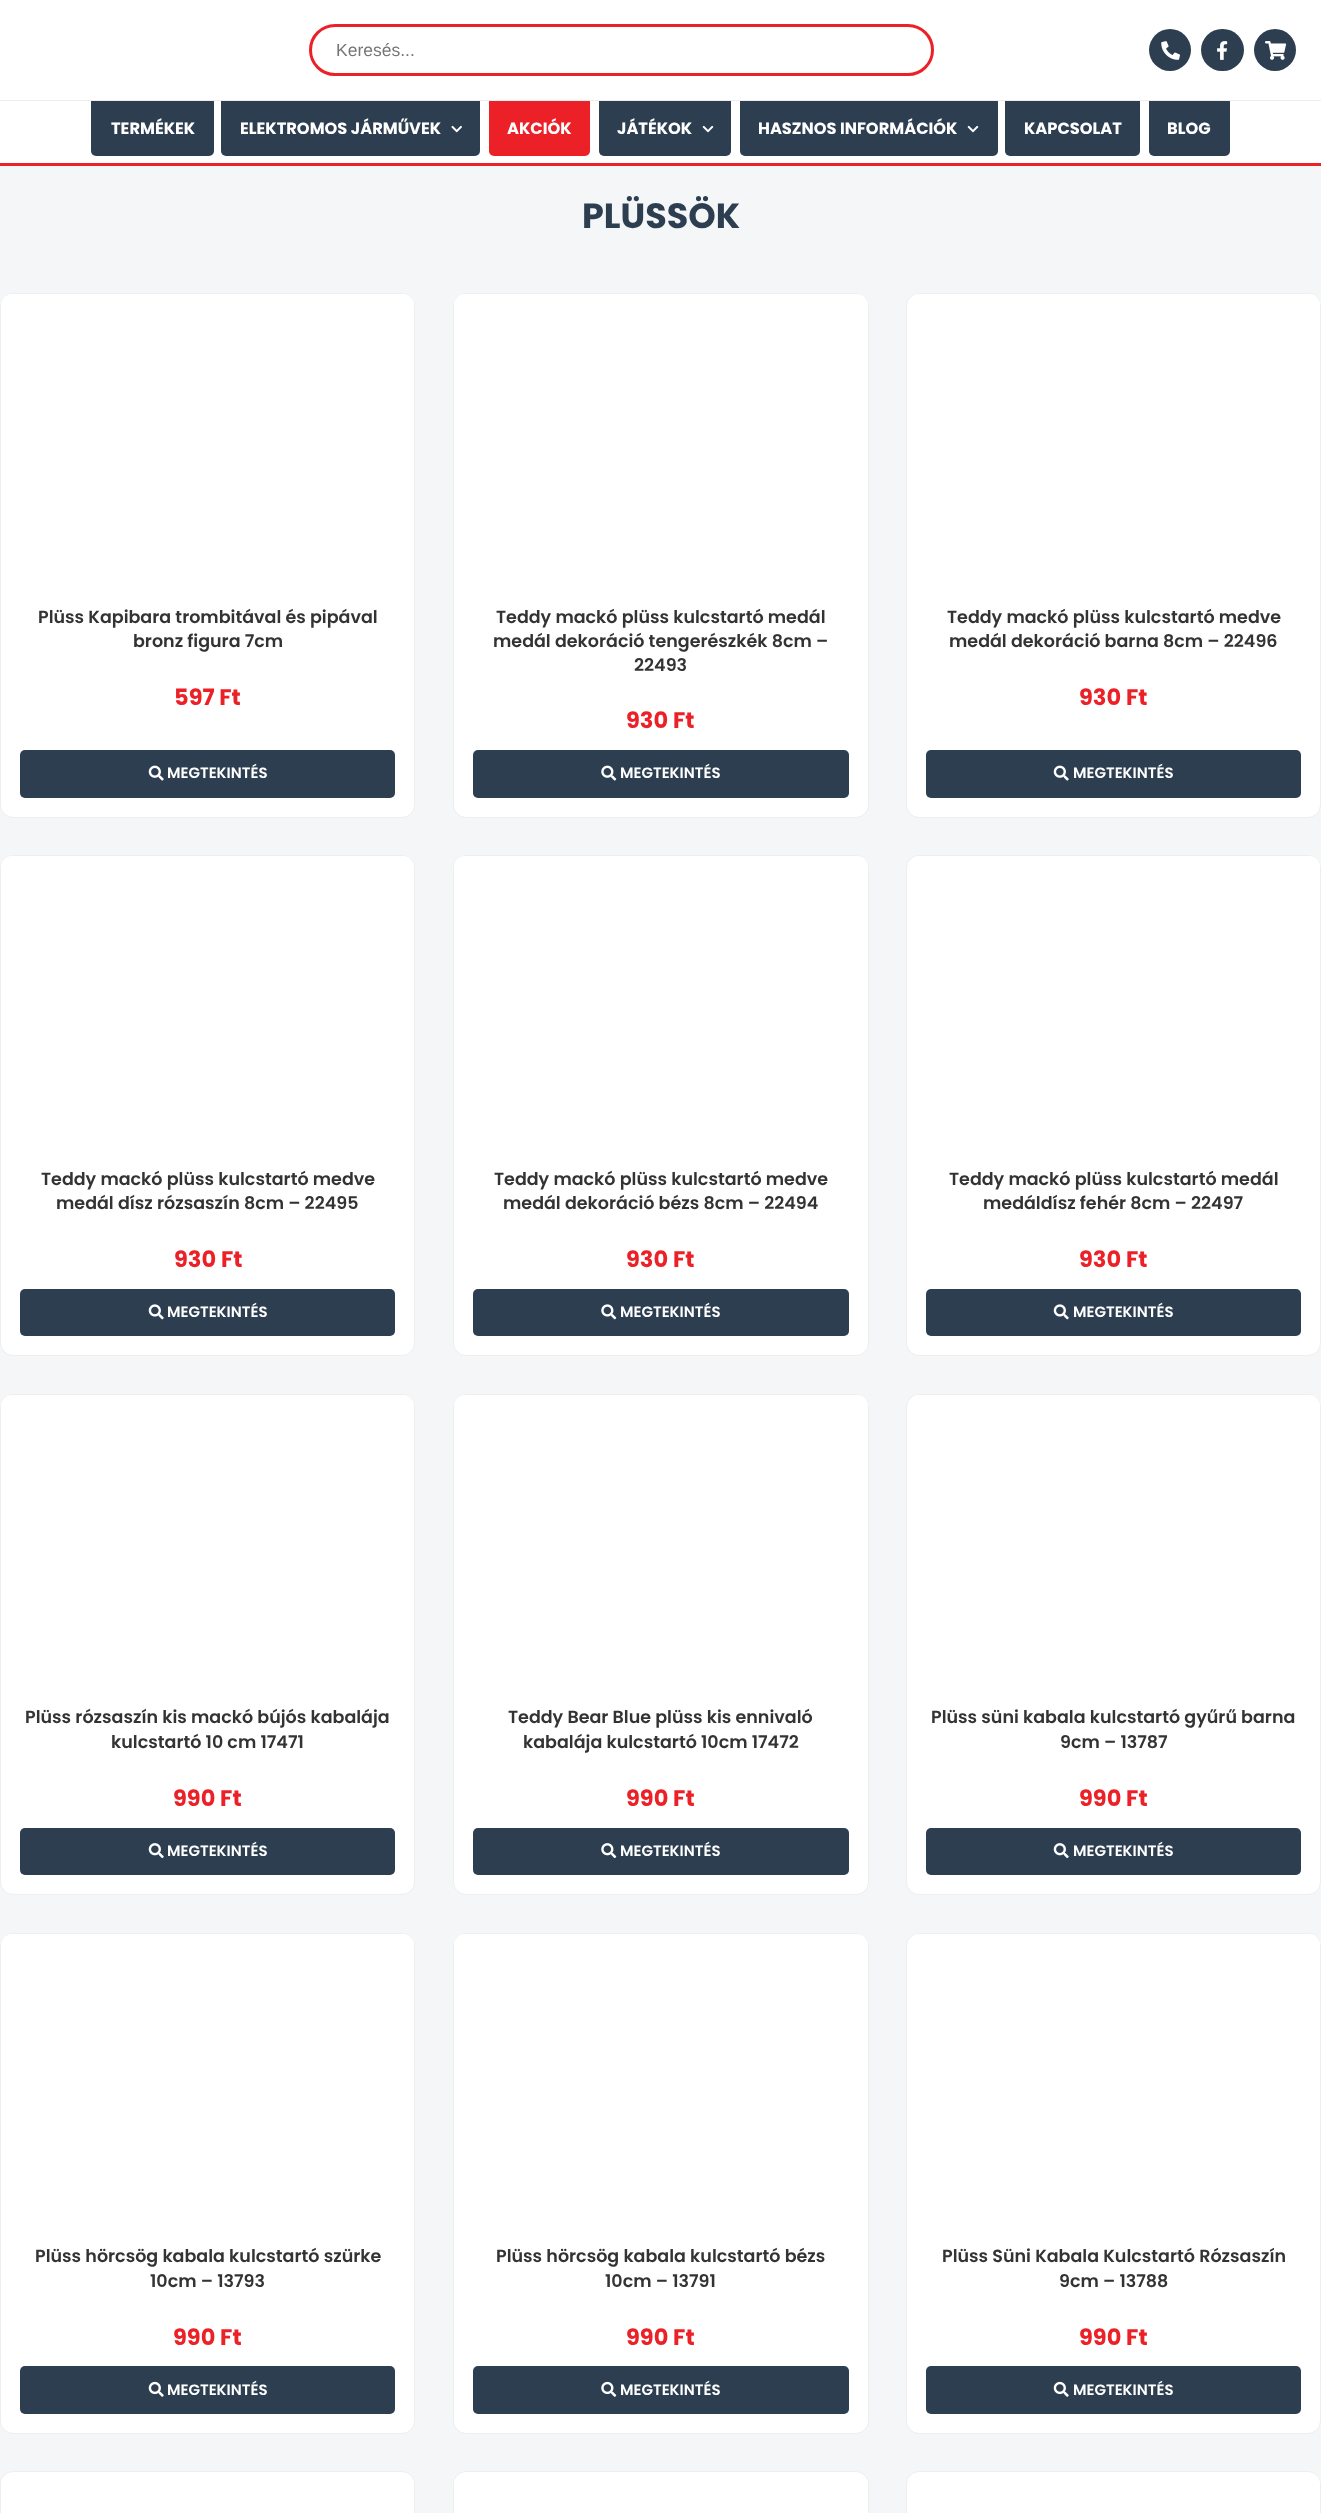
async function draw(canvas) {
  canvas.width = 1321;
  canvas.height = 2513;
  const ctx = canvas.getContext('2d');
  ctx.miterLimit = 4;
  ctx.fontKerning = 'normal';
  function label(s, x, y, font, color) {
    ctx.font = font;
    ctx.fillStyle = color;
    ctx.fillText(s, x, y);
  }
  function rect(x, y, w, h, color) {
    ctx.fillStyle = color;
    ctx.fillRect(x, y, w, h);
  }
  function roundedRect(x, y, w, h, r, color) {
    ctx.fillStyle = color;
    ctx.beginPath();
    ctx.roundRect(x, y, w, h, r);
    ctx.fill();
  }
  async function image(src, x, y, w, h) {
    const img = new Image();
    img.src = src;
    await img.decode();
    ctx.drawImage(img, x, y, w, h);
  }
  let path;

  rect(0, 0, 1321, 2513, '#f4f6f8');
  rect(0, 0, 1321, 163, '#fff');
  rect(0, 163, 1321, 3, '#ec2127');
  ctx.beginPath();
  ctx.roundRect(310.5, 25.5, 622, 49, 24.5);
  ctx.strokeStyle = '#ec2127';
  ctx.lineWidth = 3;
  ctx.stroke();
  label('Keresés...', 336, 56, '17.5px Liberation Sans', '#757575');
  ctx.fillStyle = '#2c3e50';
  ctx.beginPath();
  ctx.arc(1170, 50, 21, 0, 2 * Math.PI);
  ctx.fill();
  await image('assets/img1.png', 1161, 41, 19, 19);
  roundedRect(1201, 29, 43, 42, 21, '#2c3e50');
  await image('assets/img2.png', 1217, 41, 11, 19);
  ctx.beginPath();
  ctx.arc(1275, 50, 21, 0, 2 * Math.PI);
  ctx.fill();
  await image('assets/img3.png', 1265, 41, 22, 19);
  rect(0, 100, 1321, 1, '#eee');
  ctx.fillStyle = '#2c3e50';
  ctx.beginPath();
  ctx.roundRect(91, 101, 123, 55, [0, 0, 5, 5]);
  ctx.fill();
  label('TERMÉKEK', 111, 134, 'bold 16.25px Poppins', '#fff');
  ctx.fillStyle = '#2c3e50';
  ctx.beginPath();
  ctx.roundRect(221, 101, 259, 55, [0, 0, 5, 5]);
  ctx.fill();
  label('ELEKTROMOS JÁRMŰVEK', 240, 134, 'bold 16.25px Poppins', '#fff');
  await image('assets/img4.png', 451, 125, 11, 8);
  ctx.fillStyle = '#ec2127';
  ctx.beginPath();
  ctx.roundRect(489, 101, 101, 55, [0, 0, 5, 5]);
  ctx.fill();
  label('AKCIÓK', 507, 134, 'bold 16.25px Poppins', '#fff');
  ctx.fillStyle = '#2c3e50';
  ctx.beginPath();
  ctx.roundRect(599, 101, 132, 55, [0, 0, 5, 5]);
  ctx.fill();
  label('JÁTÉKOK', 617, 134, 'bold 16.25px Poppins', '#fff');
  await image('assets/img5.png', 702, 125, 12, 8);
  ctx.fillStyle = '#2c3e50';
  ctx.beginPath();
  ctx.roundRect(740, 101, 258, 55, [0, 0, 5, 5]);
  ctx.fill();
  label('HASZNOS INFORMÁCIÓK', 758, 134, 'bold 16.25px Poppins', '#fff');
  await image('assets/img5.png', 967, 125, 12, 8);
  ctx.fillStyle = '#2c3e50';
  ctx.beginPath();
  ctx.roundRect(1005, 101, 135, 55, [0, 0, 5, 5]);
  ctx.fill();
  label('KAPCSOLAT', 1024, 134, 'bold 16.25px Poppins', '#fff');
  ctx.fillStyle = '#2c3e50';
  ctx.beginPath();
  ctx.roundRect(1149, 101, 81, 55, [0, 0, 5, 5]);
  ctx.fill();
  label('BLOG', 1167, 134, 'bold 16.25px Poppins', '#fff');
  label('PLÜSSÖK', 582, 228, 'bold 35px Poppins', '#2c3e50');
  ctx.fillStyle = '#fff';
  ctx.beginPath();
  ctx.roundRect(0.5, 293.5, 414, 524, 12.5);
  ctx.fill();
  ctx.strokeStyle = '#eee';
  ctx.lineWidth = 1;
  ctx.stroke();
  ctx.beginPath();
  ctx.roundRect(1, 294, 413, 275, [11, 11, 0, 0]);
  ctx.fill();
  label('Plüss Kapibara trombitával és pipával', 38, 623, '600 17.5px Poppins', '#333');
  label('bronz figura 7cm', 133, 647, '600 17.5px Poppins', '#333');
  label('597 Ft', 174, 705, 'bold 22.5px Poppins', '#ec2127');
  roundedRect(20, 750, 375, 48, 5, '#2c3e50');
  await image('assets/img6.png', 148, 765, 16, 16);
  label('MEGTEKINTÉS', 167, 778, '600 15px Poppins', '#fff');
  ctx.beginPath();
  ctx.roundRect(453.5, 293.5, 415, 524, 12.5);
  ctx.fill();
  ctx.stroke();
  ctx.beginPath();
  ctx.roundRect(454, 294, 414, 275, [11, 11, 0, 0]);
  ctx.fill();
  label('Teddy mackó plüss kulcstartó medál', 496, 623, '600 17.5px Poppins', '#333');
  label('medál dekoráció tengerészkék 8cm –', 493, 647, '600 17.5px Poppins', '#333');
  label('22493', 634, 671, '600 17.5px Poppins', '#333');
  label('930 Ft', 626, 728, 'bold 22.5px Poppins', '#ec2127');
  roundedRect(473, 750, 376, 48, 5, '#2c3e50');
  await image('assets/img7.png', 601, 765, 16, 16);
  label('MEGTEKINTÉS', 620, 778, '600 15px Poppins', '#fff');
  ctx.beginPath();
  ctx.roundRect(906.5, 293.5, 414, 524, 12.5);
  ctx.fill();
  ctx.stroke();
  ctx.beginPath();
  ctx.roundRect(908, 294, 412, 275, [11, 11, 0, 0]);
  ctx.fill();
  label('Teddy mackó plüss kulcstartó medve', 947, 623, '600 17.5px Poppins', '#333');
  label('medál dekoráció barna 8cm – 22496', 949, 647, '600 17.5px Poppins', '#333');
  label('930 Ft', 1079, 705, 'bold 22.5px Poppins', '#ec2127');
  roundedRect(926, 750, 375, 48, 5, '#2c3e50');
  await image('assets/img6.png', 1053, 765, 16, 16);
  label('MEGTEKINTÉS', 1073, 778, '600 15px Poppins', '#fff');
  ctx.beginPath();
  ctx.roundRect(0.5, 855.5, 414, 500, 12.5);
  ctx.fill();
  ctx.stroke();
  ctx.beginPath();
  ctx.roundRect(1, 856, 413, 275, [11, 11, 0, 0]);
  ctx.fill();
  label('Teddy mackó plüss kulcstartó medve', 41, 1185, '600 17.5px Poppins', '#333');
  label('medál dísz rózsaszín 8cm – 22495', 56, 1209, '600 17.5px Poppins', '#333');
  label('930 Ft', 174, 1267, 'bold 22.5px Poppins', '#ec2127');
  roundedRect(20, 1289, 375, 47, 5, '#2c3e50');
  await image('assets/img8.png', 148, 1304, 16, 16);
  label('MEGTEKINTÉS', 167, 1317, '600 15px Poppins', '#fff');
  ctx.beginPath();
  ctx.roundRect(453.5, 855.5, 415, 500, 12.5);
  ctx.fill();
  ctx.stroke();
  ctx.beginPath();
  ctx.roundRect(454, 856, 414, 275, [11, 11, 0, 0]);
  ctx.fill();
  label('Teddy mackó plüss kulcstartó medve', 494, 1185, '600 17.5px Poppins', '#333');
  label('medál dekoráció bézs 8cm – 22494', 503, 1209, '600 17.5px Poppins', '#333');
  label('930 Ft', 626, 1267, 'bold 22.5px Poppins', '#ec2127');
  roundedRect(473, 1289, 376, 47, 5, '#2c3e50');
  await image('assets/img9.png', 601, 1304, 16, 16);
  label('MEGTEKINTÉS', 620, 1317, '600 15px Poppins', '#fff');
  ctx.beginPath();
  ctx.roundRect(906.5, 855.5, 414, 500, 12.5);
  ctx.fill();
  ctx.stroke();
  ctx.beginPath();
  ctx.roundRect(908, 856, 412, 275, [11, 11, 0, 0]);
  ctx.fill();
  label('Teddy mackó plüss kulcstartó medál', 949, 1185, '600 17.5px Poppins', '#333');
  label('medáldísz fehér 8cm – 22497', 983, 1209, '600 17.5px Poppins', '#333');
  label('930 Ft', 1079, 1267, 'bold 22.5px Poppins', '#ec2127');
  roundedRect(926, 1289, 375, 47, 5, '#2c3e50');
  await image('assets/img8.png', 1053, 1304, 16, 16);
  label('MEGTEKINTÉS', 1073, 1317, '600 15px Poppins', '#fff');
  ctx.beginPath();
  ctx.roundRect(0.5, 1394.5, 414, 500, 12.5);
  ctx.fill();
  ctx.stroke();
  ctx.beginPath();
  ctx.roundRect(1, 1395, 413, 275, [11, 11, 0, 0]);
  ctx.fill();
  label('Plüss rózsaszín kis mackó bújós kabalája', 25, 1723, '600 17.5px Poppins', '#333');
  label('kulcstartó 10 cm 17471', 111, 1748, '600 17.5px Poppins', '#333');
  label('990 Ft', 173, 1806, 'bold 22.5px Poppins', '#ec2127');
  roundedRect(20, 1828, 375, 47, 5, '#2c3e50');
  await image('assets/img10.png', 148, 1843, 16, 16);
  label('MEGTEKINTÉS', 167, 1856, '600 15px Poppins', '#fff');
  ctx.beginPath();
  ctx.roundRect(453.5, 1394.5, 415, 500, 12.5);
  ctx.fill();
  ctx.stroke();
  ctx.beginPath();
  ctx.roundRect(454, 1395, 414, 275, [11, 11, 0, 0]);
  ctx.fill();
  label('Teddy Bear Blue plüss kis ennivaló', 508, 1723, '600 17.5px Poppins', '#333');
  label('kabalája kulcstartó 10cm 17472', 523, 1748, '600 17.5px Poppins', '#333');
  label('990 Ft', 626, 1806, 'bold 22.5px Poppins', '#ec2127');
  roundedRect(473, 1828, 376, 47, 5, '#2c3e50');
  await image('assets/img11.png', 601, 1843, 16, 16);
  label('MEGTEKINTÉS', 620, 1856, '600 15px Poppins', '#fff');
  ctx.beginPath();
  ctx.roundRect(906.5, 1394.5, 414, 500, 12.5);
  ctx.fill();
  ctx.stroke();
  ctx.beginPath();
  ctx.roundRect(908, 1395, 412, 275, [11, 11, 0, 0]);
  ctx.fill();
  label('Plüss süni kabala kulcstartó gyűrű barna', 931, 1723, '600 17.5px Poppins', '#333');
  label('9cm – 13787', 1060, 1748, '600 17.5px Poppins', '#333');
  label('990 Ft', 1079, 1806, 'bold 22.5px Poppins', '#ec2127');
  roundedRect(926, 1828, 375, 47, 5, '#2c3e50');
  await image('assets/img10.png', 1053, 1843, 16, 16);
  label('MEGTEKINTÉS', 1073, 1856, '600 15px Poppins', '#fff');
  ctx.beginPath();
  ctx.roundRect(0.5, 1933.5, 414, 500, 12.5);
  ctx.fill();
  ctx.stroke();
  ctx.beginPath();
  ctx.roundRect(1, 1934, 413, 275, [11, 11, 0, 0]);
  ctx.fill();
  label('Plüss hörcsög kabala kulcstartó szürke', 35, 2262, '600 17.5px Poppins', '#333');
  label('10cm – 13793', 150, 2287, '600 17.5px Poppins', '#333');
  label('990 Ft', 173, 2345, 'bold 22.5px Poppins', '#ec2127');
  roundedRect(20, 2366, 375, 48, 5, '#2c3e50');
  await image('assets/img12.png', 148, 2381, 16, 16);
  label('MEGTEKINTÉS', 167, 2395, '600 15px Poppins', '#fff');
  ctx.beginPath();
  ctx.roundRect(453.5, 1933.5, 415, 500, 12.5);
  ctx.fill();
  ctx.stroke();
  ctx.beginPath();
  ctx.roundRect(454, 1934, 414, 275, [11, 11, 0, 0]);
  ctx.fill();
  label('Plüss hörcsög kabala kulcstartó bézs', 496, 2262, '600 17.5px Poppins', '#333');
  label('10cm – 13791', 605, 2287, '600 17.5px Poppins', '#333');
  label('990 Ft', 626, 2345, 'bold 22.5px Poppins', '#ec2127');
  roundedRect(473, 2366, 376, 48, 5, '#2c3e50');
  await image('assets/img13.png', 601, 2381, 16, 16);
  label('MEGTEKINTÉS', 620, 2395, '600 15px Poppins', '#fff');
  ctx.beginPath();
  ctx.roundRect(906.5, 1933.5, 414, 500, 12.5);
  ctx.fill();
  ctx.stroke();
  ctx.beginPath();
  ctx.roundRect(908, 1934, 412, 275, [11, 11, 0, 0]);
  ctx.fill();
  label('Plüss Süni Kabala Kulcstartó Rózsaszín', 942, 2262, '600 17.5px Poppins', '#333');
  label('9cm – 13788', 1059, 2287, '600 17.5px Poppins', '#333');
  label('990 Ft', 1079, 2345, 'bold 22.5px Poppins', '#ec2127');
  roundedRect(926, 2366, 375, 48, 5, '#2c3e50');
  await image('assets/img12.png', 1053, 2381, 16, 16);
  label('MEGTEKINTÉS', 1073, 2395, '600 15px Poppins', '#fff');
  ctx.beginPath();
  ctx.roundRect(0.5, 2471.5, 414, 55, 12.5);
  ctx.fill();
  ctx.stroke();
  path = new Path2D('M12 2473H403C409 2473 414 2478 414 2484V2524H1V2484C1 2478 6 2473 12 2473Z');
  ctx.fill(path);
  ctx.beginPath();
  ctx.roundRect(453.5, 2471.5, 415, 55, 12.5);
  ctx.fill();
  ctx.stroke();
  path = new Path2D('M465 2473H857C863 2473 868 2478 868 2484V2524H454V2484C454 2478 459 2473 465 2473Z');
  ctx.fill(path);
  ctx.beginPath();
  ctx.roundRect(906.5, 2471.5, 414, 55, 12.5);
  ctx.fill();
  ctx.stroke();
  path = new Path2D('M919 2473H1309C1315 2473 1320 2478 1320 2484V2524H908V2484C908 2478 913 2473 919 2473Z');
  ctx.fill(path);
}

draw(document.querySelector('canvas'));
